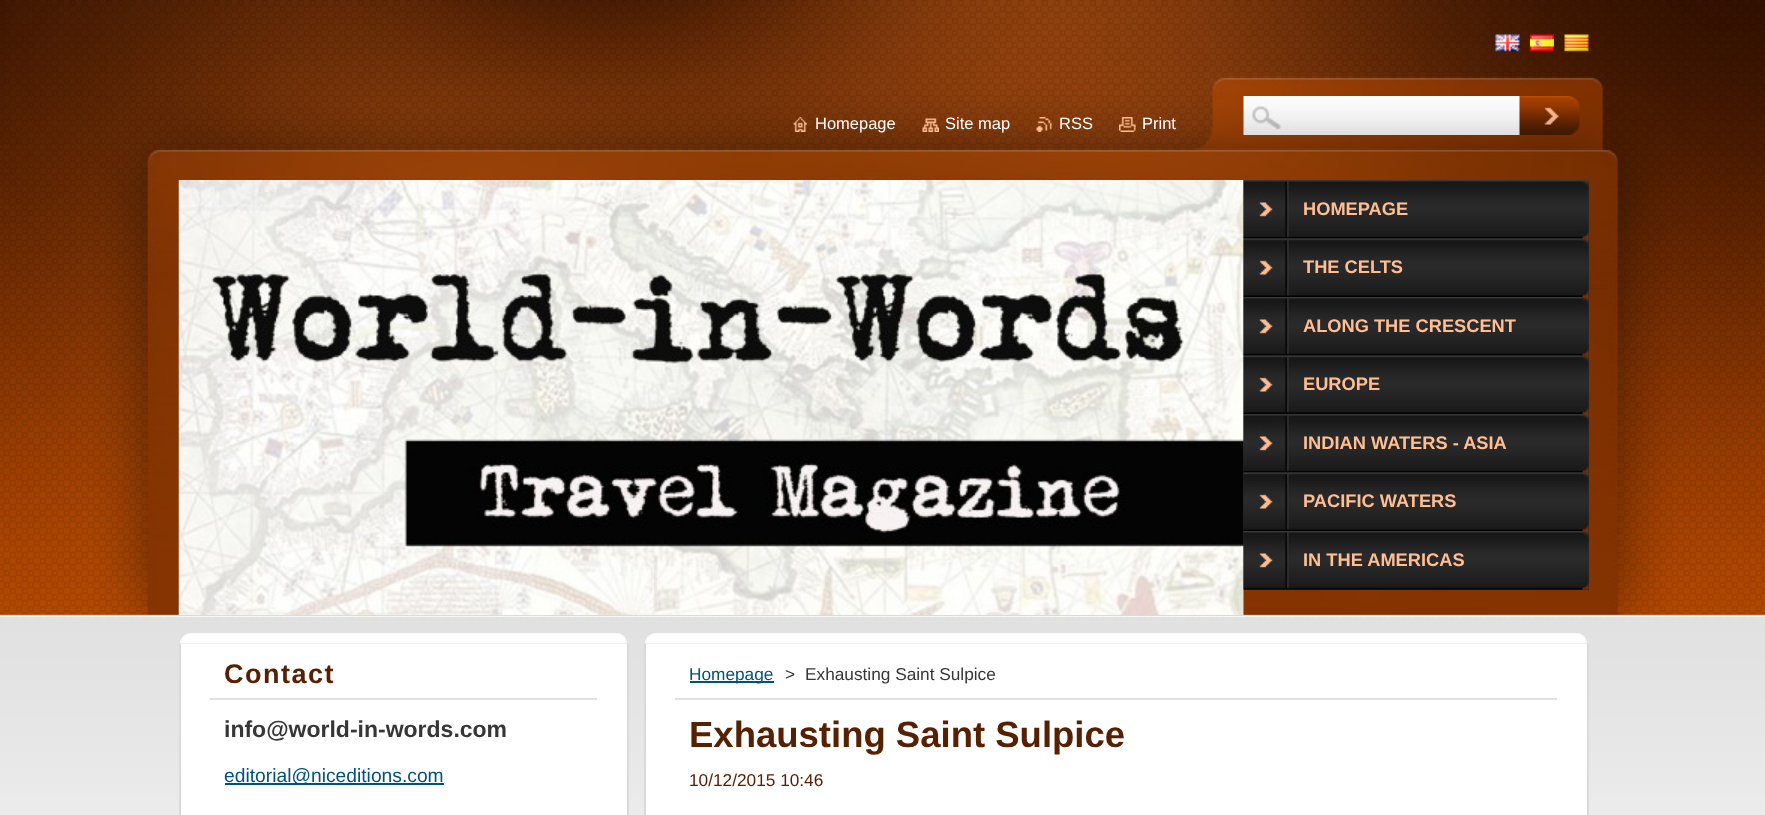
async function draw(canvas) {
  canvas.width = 1765;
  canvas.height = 815;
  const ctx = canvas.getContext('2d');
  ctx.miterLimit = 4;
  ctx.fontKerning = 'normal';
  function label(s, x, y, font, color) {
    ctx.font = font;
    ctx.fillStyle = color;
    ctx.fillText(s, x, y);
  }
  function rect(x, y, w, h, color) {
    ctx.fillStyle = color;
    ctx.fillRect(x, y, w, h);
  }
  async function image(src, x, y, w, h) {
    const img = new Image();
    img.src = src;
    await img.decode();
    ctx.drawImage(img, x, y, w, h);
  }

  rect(0, 0, 1765, 815, '#fff');
  await image('assets/img1.png', 0, 616, 1765, 199);
  await image('assets/img2.png', 0, 0, 1765, 617);
  await image('assets/img3.png', 1495, 34, 25, 18);
  await image('assets/img4.png', 1530, 34, 24, 18);
  await image('assets/img5.png', 1564, 34, 25, 18);
  await image('assets/img6.png', 793, 117, 14, 15);
  label('Homepage', 815, 129, '16.5px Liberation Sans', '#fff');
  await image('assets/img7.png', 922, 118, 17, 14);
  label('Site map', 945, 129, '16.5px Liberation Sans', '#fff');
  await image('assets/img8.png', 1036, 117, 16, 15);
  label('RSS', 1059, 129, '16.5px Liberation Sans', '#fff');
  await image('assets/img9.png', 1119, 117, 17, 15);
  label('Print', 1142, 129, '16.5px Liberation Sans', '#fff');
  await image('assets/img10.png', 1243, 96, 277, 39);
  await image('assets/img11.png', 1519, 96, 61, 39);
  await image('assets/img12.png', 178, 180, 1066, 435);
  rect(1244, 180, 345, 59, '#2a2a2a');
  await image('assets/img13.png', 1243, 180, 346, 59);
  label('HOMEPAGE', 1303, 215, 'bold 18.25px Liberation Sans', '#ffbe93');
  rect(1588, 239, 1, 58, '#2a2a2a');
  await image('assets/img14.png', 1243, 238, 346, 59);
  label('THE CELTS', 1303, 273, 'bold 18.25px Liberation Sans', '#ffbe93');
  rect(1244, 297, 345, 59, '#2a2a2a');
  await image('assets/img15.png', 1243, 297, 346, 59);
  label('ALONG THE CRESCENT', 1303, 332, 'bold 18.25px Liberation Sans', '#ffbe93');
  rect(1588, 356, 1, 58, '#2a2a2a');
  await image('assets/img16.png', 1243, 355, 346, 59);
  label('EUROPE', 1303, 390, 'bold 18.25px Liberation Sans', '#ffbe93');
  rect(1244, 414, 345, 59, '#2a2a2a');
  await image('assets/img17.png', 1243, 414, 346, 59);
  label('INDIAN WATERS - ASIA', 1303, 449, 'bold 18.25px Liberation Sans', '#ffbe93');
  rect(1588, 473, 1, 58, '#2a2a2a');
  await image('assets/img18.png', 1243, 472, 346, 59);
  label('PACIFIC WATERS', 1303, 507, 'bold 18.25px Liberation Sans', '#ffbe93');
  rect(1244, 531, 345, 59, '#2a2a2a');
  await image('assets/img19.png', 1243, 531, 346, 59);
  label('IN THE AMERICAS', 1303, 566, 'bold 18.25px Liberation Sans', '#ffbe93');
  await image('assets/img20.png', 180, 633, 447, 11);
  rect(181, 644, 446, 171, '#fff');
  rect(627, 644, 2, 171, '#dadada');
  rect(179, 644, 2, 171, '#dadada');
  rect(210, 698, 387, 2, '#e1e1e1');
  ctx.letterSpacing = '1.5px';
  label('Contact', 224, 683, 'bold 27px Liberation Sans', '#562003');
  ctx.letterSpacing = '0px';
  label('info@world-in-words.com', 224, 737, 'bold 23px Liberation Sans', '#363636');
  rect(225, 783, 219, 2, '#005279');
  label('editorial@niceditions.com', 224, 782, '19.25px Liberation Sans', '#005279');
  await image('assets/img21.png', 645, 633, 942, 11);
  rect(646, 644, 941, 171, '#fff');
  rect(1587, 644, 2, 171, '#dadada');
  rect(644, 644, 2, 171, '#dadada');
  rect(675, 698, 882, 2, '#e1e1e1');
  rect(690, 681, 84, 2, '#005279');
  label('Homepage', 689, 680, '17.25px Liberation Sans', '#005279');
  label('>', 785, 680, '17.25px Liberation Sans', '#363636');
  label('Exhausting Saint Sulpice', 805, 680, '17.25px Liberation Sans', '#363636');
  label('Exhausting Saint Sulpice', 689, 747, 'bold 36.5px Liberation Sans', '#562003');
  label('10/12/2015 10:46', 689, 786, '17.25px Liberation Sans', '#562003');
}

draw(document.querySelector('canvas'));
